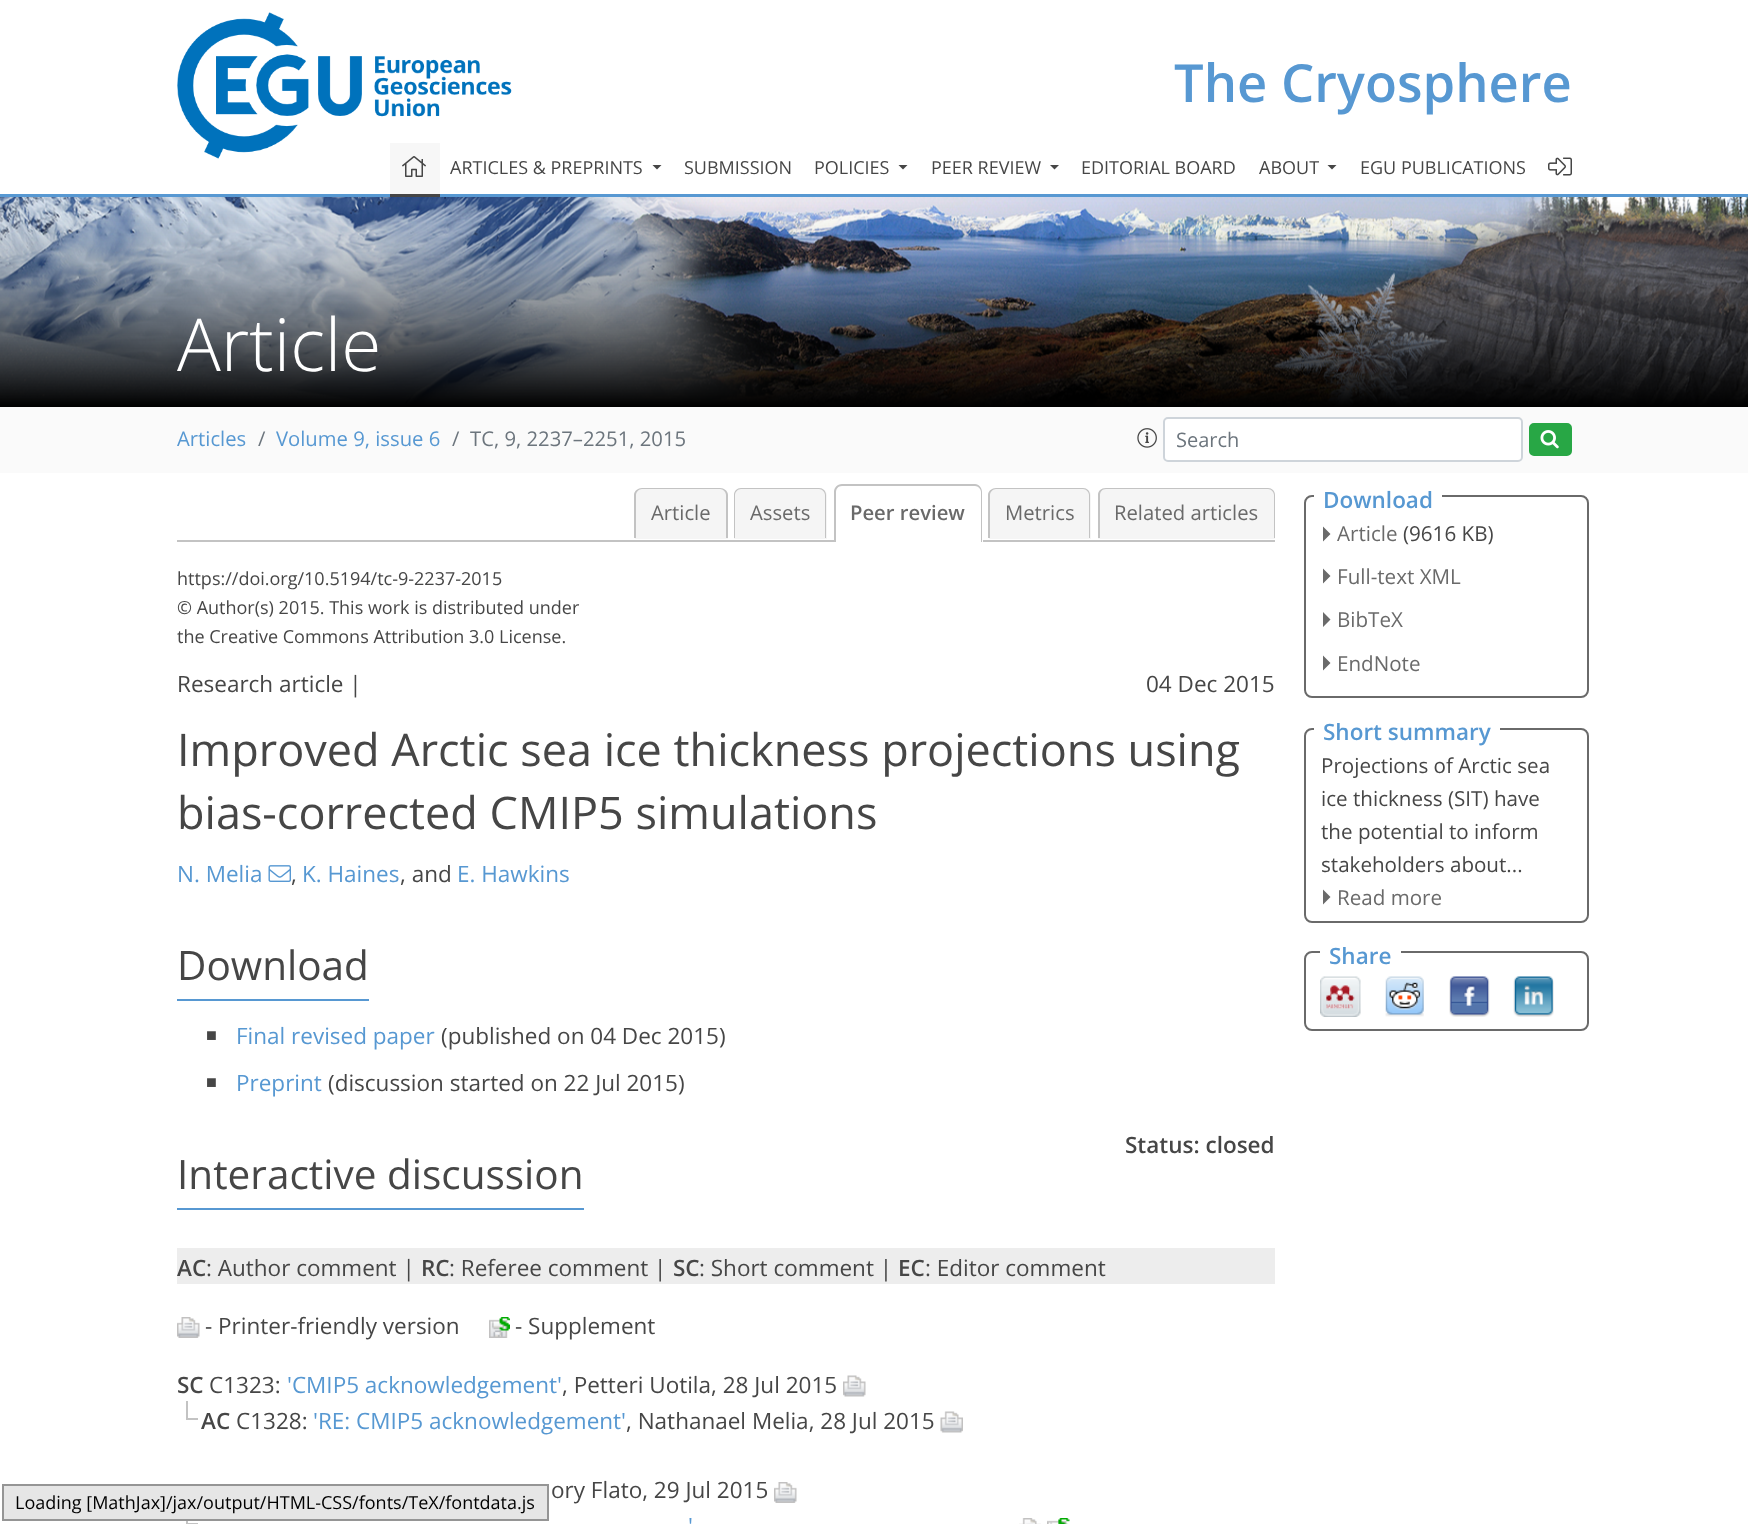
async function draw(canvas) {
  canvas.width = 1748;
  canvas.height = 1524;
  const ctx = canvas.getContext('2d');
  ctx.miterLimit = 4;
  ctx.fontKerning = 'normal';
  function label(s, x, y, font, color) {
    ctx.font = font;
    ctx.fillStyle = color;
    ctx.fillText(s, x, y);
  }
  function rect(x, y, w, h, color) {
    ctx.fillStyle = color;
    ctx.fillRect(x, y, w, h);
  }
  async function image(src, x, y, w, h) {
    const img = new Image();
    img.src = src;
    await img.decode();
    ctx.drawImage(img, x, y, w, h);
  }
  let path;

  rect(0, 0, 1748, 1524, '#fff');
  await image('assets/img1.png', 177, 12, 335, 147);
  label('The Cryosphere', 1174, 102, '600 52.5px Open Sans', '#5798d2');
  rect(0, 194, 1748, 3, '#5798d2');
  rect(390, 143, 50, 51, '#f7f7f7');
  rect(390, 194, 50, 3, '#464646');
  await image('assets/img2.png', 402, 156, 24, 21);
  label('ARTICLES & PREPRINTS', 450, 174, '18px Open Sans', '#464646');
  path = new Path2D('M652.5 165H661.5L657 169.5Z');
  ctx.fill(path);
  label('SUBMISSION', 684, 174, '18px Open Sans', '#464646');
  label('POLICIES', 814, 174, '18px Open Sans', '#464646');
  path = new Path2D('M898.5 165H907.5L903 169.5Z');
  ctx.fill(path);
  label('PEER REVIEW', 931, 174, '18px Open Sans', '#464646');
  path = new Path2D('M1050 165H1059L1054.5 169.5Z');
  ctx.fill(path);
  label('EDITORIAL BOARD', 1081, 174, '18px Open Sans', '#464646');
  label('ABOUT', 1259, 174, '18px Open Sans', '#464646');
  path = new Path2D('M1327.5 165H1336.5L1332 169.5Z');
  ctx.fill(path);
  label('EGU PUBLICATIONS', 1360, 174, '18px Open Sans', '#464646');
  await image('assets/img3.png', 1548, 157, 24, 19);
  await image('assets/img4.png', 0, 197, 1748, 210);
  label('Article', 177, 371, '300 73px Open Sans', '#fff');
  rect(0, 407, 1748, 66, '#fafafa');
  label('Articles', 177, 446, '20.25px Open Sans', '#5798d2');
  label('/', 258, 446, '20.25px Open Sans', '#6c757d');
  label('Volume 9, issue 6', 276, 446, '20.25px Open Sans', '#5798d2');
  label('/', 452, 446, '20.25px Open Sans', '#6c757d');
  label('TC, 9, 2237–2251, 2015', 470, 446, '20.25px Open Sans', '#6c757d');
  await image('assets/img5.png', 1137, 428, 20, 20);
  ctx.fillStyle = '#fff';
  ctx.beginPath();
  ctx.roundRect(1164, 418, 358, 43, 4);
  ctx.fill();
  ctx.strokeStyle = '#ced4da';
  ctx.lineWidth = 2;
  ctx.stroke();
  label('Search', 1176, 447, '20px Open Sans', '#6c757d');
  ctx.fillStyle = '#28a745';
  ctx.beginPath();
  ctx.roundRect(1530, 424, 41, 31, 4);
  ctx.fill();
  ctx.strokeStyle = '#28a745';
  ctx.stroke();
  await image('assets/img6.png', 1540, 430, 19, 19);
  rect(177, 540, 1098, 2, '#c3c3c3');
  ctx.fillStyle = '#f5f5f5';
  ctx.beginPath();
  ctx.roundRect(635, 488, 93, 51, [8, 8, 0, 0]);
  ctx.fill();
  ctx.fillStyle = '#c3c3c3';
  path = new Path2D('M642 488H720C724 488 728 491 728 495V538H634V495C634 491 638 488 642 488ZM642 489H720C723 489 726 492 726 495V538H636V495C636 492 639 489 642 489Z');
  ctx.fill(path, 'evenodd');
  label('Article', 651, 520, '20.25px Open Sans', '#6a6a6a');
  ctx.fillStyle = '#f5f5f5';
  ctx.beginPath();
  ctx.roundRect(734, 488, 93, 51, [8, 8, 0, 0]);
  ctx.fill();
  ctx.fillStyle = '#c3c3c3';
  path = new Path2D('M741 488H819C823 488 826 491 826 495V538H734V495C734 491 737 488 741 488ZM741 489H819C822 489 825 492 825 495V538H735V495C735 492 738 489 741 489Z');
  ctx.fill(path, 'evenodd');
  label('Assets', 750, 520, '20.25px Open Sans', '#6a6a6a');
  ctx.fillStyle = '#fff';
  ctx.beginPath();
  ctx.roundRect(834, 485, 149, 57, [8, 8, 0, 0]);
  ctx.fill();
  ctx.fillStyle = '#c3c3c3';
  path = new Path2D('M842 484H975C979 484 982 488 982 492V542H834V492C834 488 837 484 842 484ZM842 486H975C978 486 981 489 981 492V542H836V492C836 489 838 486 842 486Z');
  ctx.fill(path, 'evenodd');
  label('Peer review', 850, 520, '600 20.25px Open Sans', '#6a6a6a');
  ctx.fillStyle = '#f5f5f5';
  ctx.beginPath();
  ctx.roundRect(989, 488, 102, 51, [8, 8, 0, 0]);
  ctx.fill();
  ctx.fillStyle = '#c3c3c3';
  path = new Path2D('M996 488H1083C1087 488 1090 491 1090 495V538H988V495C988 491 992 488 996 488ZM996 489H1083C1086 489 1089 492 1089 495V538H990V495C990 492 993 489 996 489Z');
  ctx.fill(path, 'evenodd');
  label('Metrics', 1005, 520, '20.25px Open Sans', '#6a6a6a');
  ctx.fillStyle = '#f5f5f5';
  ctx.beginPath();
  ctx.roundRect(1098, 488, 177, 51, [8, 8, 0, 0]);
  ctx.fill();
  ctx.fillStyle = '#c3c3c3';
  path = new Path2D('M1106 488H1268C1272 488 1275 491 1275 495V538H1098V495C1098 491 1101 488 1106 488ZM1106 489H1268C1271 489 1274 492 1274 495V538H1100V495C1100 492 1102 489 1106 489Z');
  ctx.fill(path, 'evenodd');
  label('Related articles', 1114, 520, '20.25px Open Sans', '#6a6a6a');
  label('https://doi.org/10.5194/tc-9-2237-2015', 177, 585, '18px Open Sans', '#464646');
  label('© Author(s) 2015. This work is distributed under', 177, 614, '18px Open Sans', '#464646');
  label('the Creative Commons Attribution 3.0 License.', 177, 643, '18px Open Sans', '#464646');
  label('Research article |', 177, 692, '22.5px Open Sans', '#464646');
  label('04 Dec 2015', 1146, 692, '22.5px Open Sans', '#464646');
  label('Improved Arctic sea ice thickness projections using', 177, 766, '45px Open Sans', '#464646');
  label('bias-corrected CMIP5 simulations', 177, 829, '45px Open Sans', '#464646');
  label('N. Melia', 177, 882, '22.5px Open Sans', '#5798d2');
  await image('assets/img7.png', 268, 865, 23, 17);
  label(',', 291, 882, '22.5px Open Sans', '#464646');
  label('K. Haines', 302, 882, '22.5px Open Sans', '#5798d2');
  label(', and', 400, 882, '22.5px Open Sans', '#464646');
  label('E. Hawkins', 457, 882, '22.5px Open Sans', '#5798d2');
  rect(177, 999, 192, 2, '#5798d2');
  label('Download', 177, 980, '40.5px Open Sans', '#464646');
  label('■', 206, 1041, '18px Liberation Sans', '#464646');
  label('Final revised paper', 236, 1044, '22.5px Open Sans', '#5798d2');
  label('(published on 04 Dec 2015)', 441, 1044, '22.5px Open Sans', '#464646');
  label('■', 206, 1088, '18px Liberation Sans', '#464646');
  label('Preprint', 236, 1091, '22.5px Open Sans', '#5798d2');
  label('(discussion started on 22 Jul 2015)', 328, 1091, '22.5px Open Sans', '#464646');
  label('Status: closed', 1125, 1153, '600 22.5px Open Sans', '#464646');
  rect(177, 1208, 407, 2, '#5798d2');
  label('Interactive discussion', 177, 1189, '40.5px Open Sans', '#464646');
  rect(177, 1248, 1098, 36, '#ededed');
  label('AC', 177, 1276, '600 22.5px Open Sans', '#464646');
  label(': Author comment |', 206, 1276, '22.5px Open Sans', '#464646');
  label('RC', 421, 1276, '600 22.5px Open Sans', '#464646');
  label(': Referee comment |', 449, 1276, '22.5px Open Sans', '#464646');
  label('SC', 673, 1276, '600 22.5px Open Sans', '#464646');
  label(': Short comment |', 699, 1276, '22.5px Open Sans', '#464646');
  label('EC', 898, 1276, '600 22.5px Open Sans', '#464646');
  label(': Editor comment', 925, 1276, '22.5px Open Sans', '#464646');
  await image('assets/img8.png', 177, 1317, 23, 21);
  label('- Printer-friendly version', 205, 1334, '22.5px Open Sans', '#464646');
  await image('assets/img9.png', 489, 1317, 21, 21);
  label('- Supplement', 515, 1334, '22.5px Open Sans', '#464646');
  label('SC', 177, 1393, '600 22.5px Open Sans', '#464646');
  label('C1323:', 209, 1393, '22.5px Open Sans', '#464646');
  label('\'CMIP5 acknowledgement\'', 287, 1393, '22.5px Open Sans', '#5798d2');
  label(', Petteri Uotila, 28 Jul 2015', 562, 1393, '22.5px Open Sans', '#464646');
  await image('assets/img10.png', 843, 1375, 23, 22);
  rect(186, 1418, 12, 2, '#c3c3c3');
  rect(186, 1401, 2, 18, '#c3c3c3');
  label('AC', 201, 1429, '600 22.5px Open Sans', '#464646');
  label('C1328:', 236, 1429, '22.5px Open Sans', '#464646');
  label('\'RE: CMIP5 acknowledgement\'', 313, 1429, '22.5px Open Sans', '#5798d2');
  label(', Nathanael Melia, 28 Jul 2015', 626, 1429, '22.5px Open Sans', '#464646');
  await image('assets/img11.png', 940, 1411, 23, 22);
  label('ory Flato, 29 Jul 2015', 551, 1498, '22.5px Open Sans', '#464646');
  await image('assets/img8.png', 774, 1482, 23, 21);
  rect(186, 1523, 12, 1, '#c3c3c3');
  rect(186, 1521, 2, 3, '#c3c3c3');
  label('\'', 688, 1534, '22.5px Open Sans', '#5798d2');
  await image('assets/img12.png', 1019, 1518, 22, 6);
  await image('assets/img13.png', 1047, 1518, 23, 6);
  ctx.beginPath();
  ctx.roundRect(1305, 496, 283, 201, 7);
  ctx.strokeStyle = '#6a6a6a';
  ctx.stroke();
  rect(1314, 495, 128, 2, '#fff');
  label('Download', 1323, 508, '600 22.5px Open Sans', '#5798d2');
  ctx.fillStyle = '#6a6a6a';
  path = new Path2D('M1323 541.5V526.5L1330.5 534ZM1323 583.5V568.5L1330.5 576Z');
  ctx.fill(path);
  label('Article', 1337, 541, '20.6px Open Sans', '#6a6a6a');
  label('(9616 KB)', 1403, 541, '20.6px Open Sans', '#464646');
  label('Full-text XML', 1337, 584, '20.6px Open Sans', '#6a6a6a');
  path = new Path2D('M1323 627V612L1330.5 619.5ZM1323 670.5V655.5L1330.5 663Z');
  ctx.fill(path);
  label('BibTeX', 1337, 627, '20.6px Open Sans', '#6a6a6a');
  label('EndNote', 1337, 671, '20.6px Open Sans', '#6a6a6a');
  ctx.beginPath();
  ctx.roundRect(1305, 729, 283, 193, 7);
  ctx.stroke();
  rect(1314, 728, 186, 2, '#fff');
  label('Short summary', 1323, 740, '600 22.5px Open Sans', '#5798d2');
  label('Projections of Arctic sea', 1321, 773, '20.6px Open Sans', '#464646');
  label('ice thickness (SIT) have', 1321, 806, '20.6px Open Sans', '#464646');
  label('the potential to inform', 1321, 839, '20.6px Open Sans', '#464646');
  label('stakeholders about...', 1321, 872, '20.6px Open Sans', '#464646');
  ctx.fillStyle = '#6a6a6a';
  path = new Path2D('M1323 904.5V889.5L1330.5 897Z');
  ctx.fill(path);
  label('Read more', 1337, 905, '20.6px Open Sans', '#6a6a6a');
  ctx.beginPath();
  ctx.roundRect(1305, 952, 283, 78, 7);
  ctx.stroke();
  rect(1320, 951, 81, 2, '#fff');
  label('Share', 1329, 964, '600 22.5px Open Sans', '#5798d2');
  await image('assets/img14.png', 1320, 976, 41, 41);
  await image('assets/img15.png', 1385, 976, 39, 41);
  await image('assets/img16.png', 1449, 976, 41, 41);
  await image('assets/img17.png', 1513, 976, 41, 41);
  ctx.fillStyle = '#e6e6e6';
  ctx.beginPath();
  ctx.rect(3, 1485, 545, 35);
  ctx.fill();
  ctx.strokeStyle = '#959595';
  ctx.stroke();
  label('Loading [MathJax]/jax/output/HTML-CSS/fonts/TeX/fontdata.js', 15, 1509, '18px Open Sans', '#000');
}

draw(document.querySelector('canvas'));
